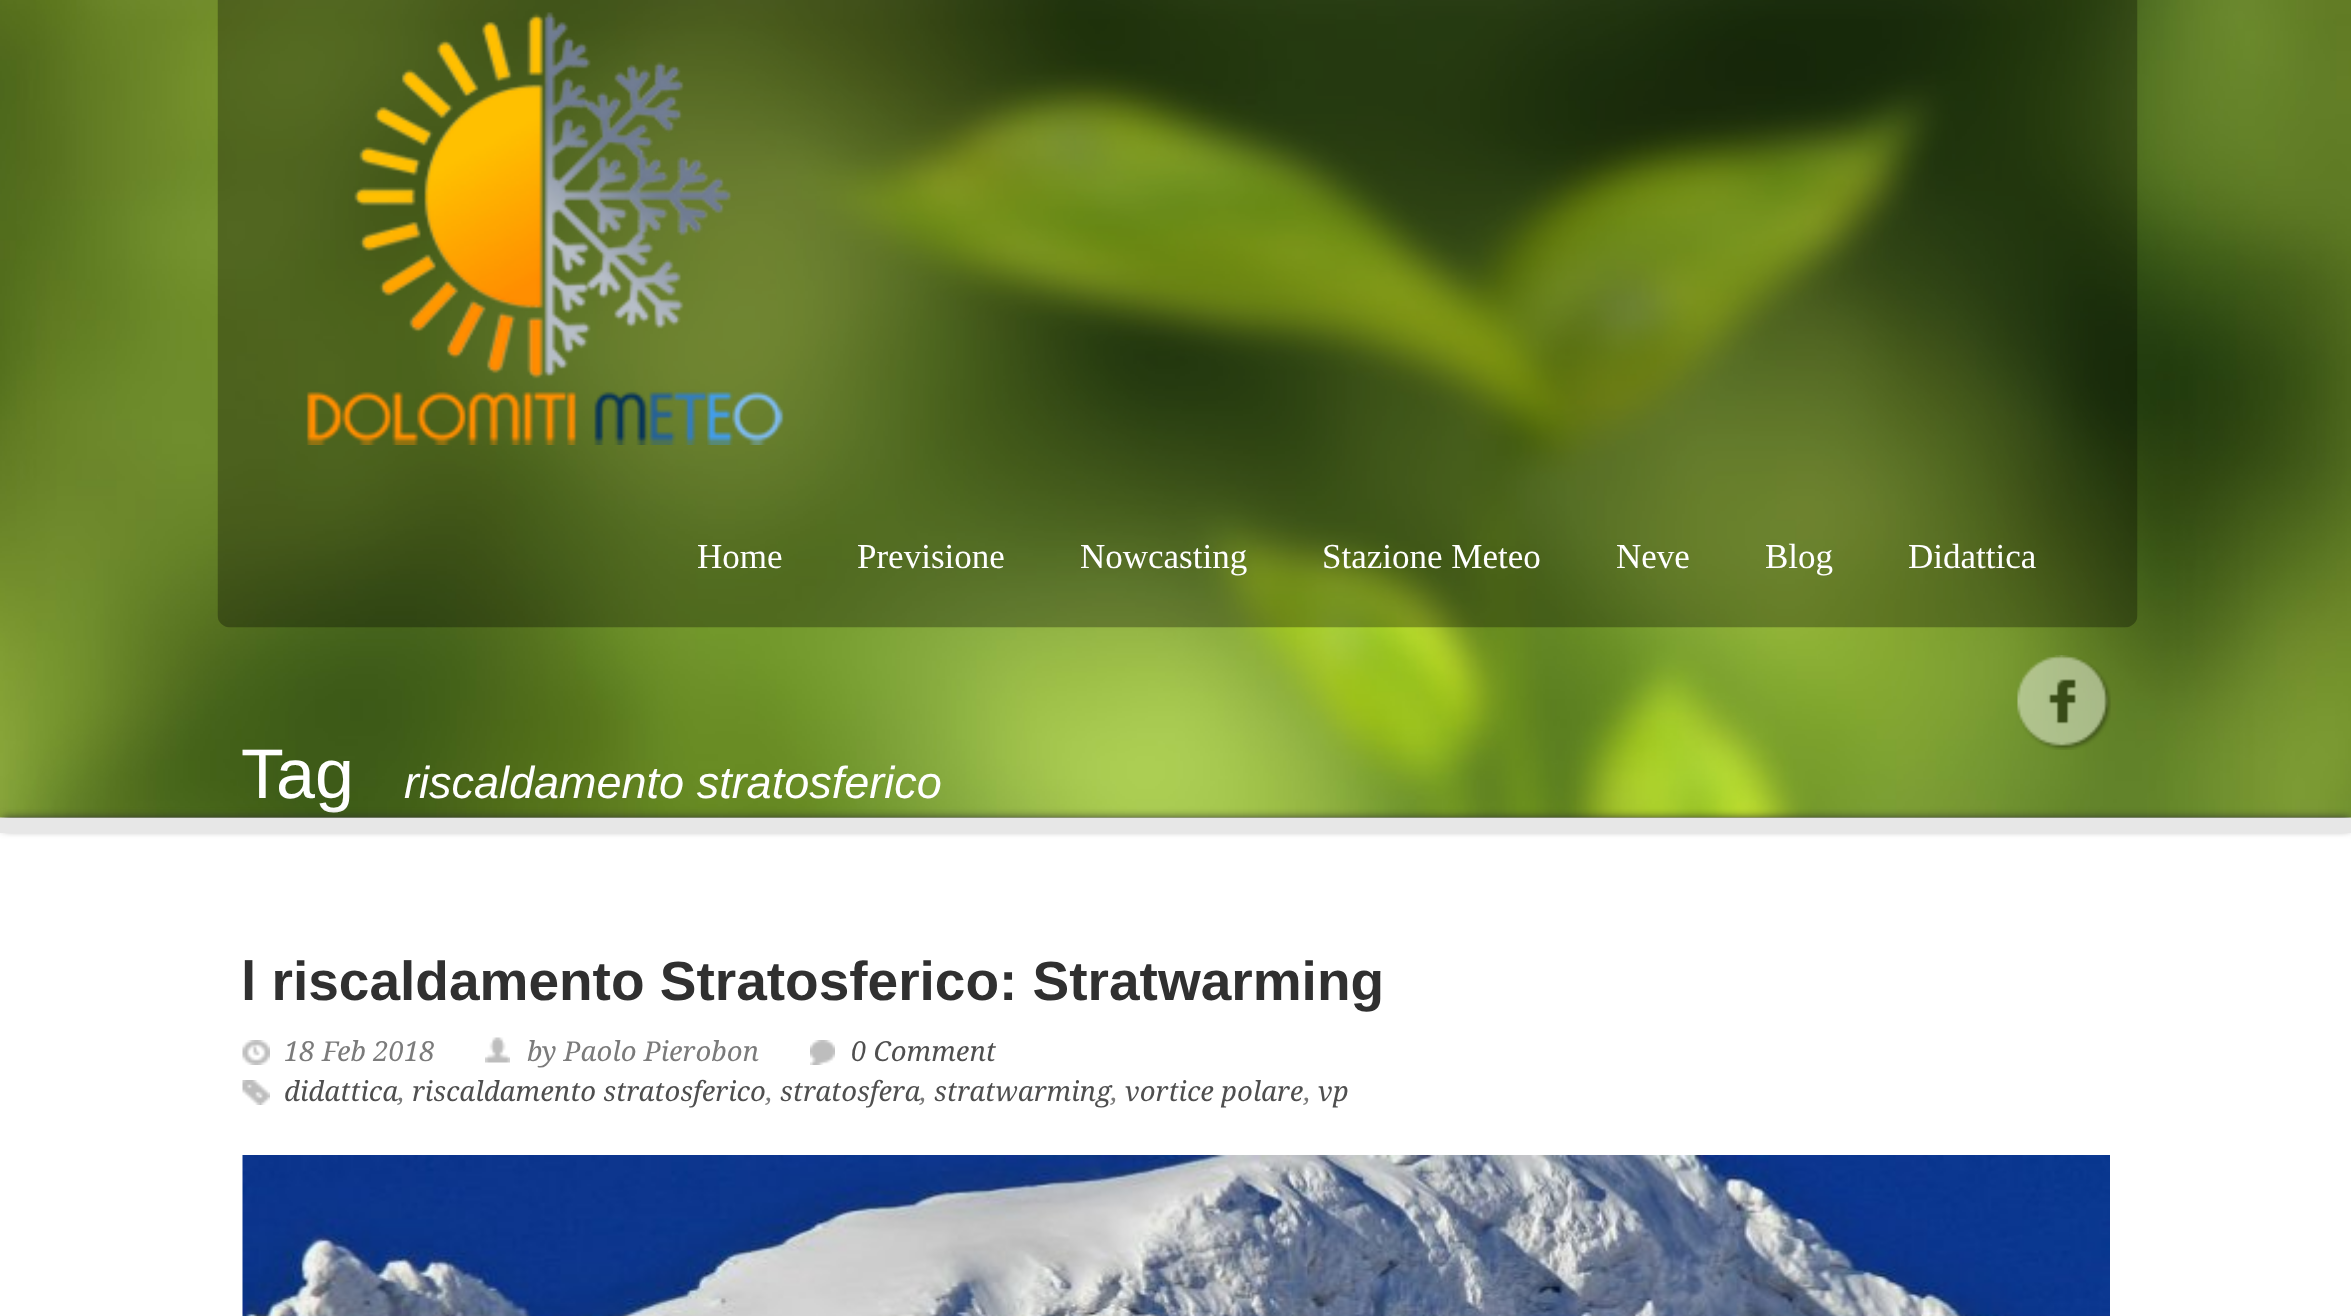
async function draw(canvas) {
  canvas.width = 2351;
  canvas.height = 1316;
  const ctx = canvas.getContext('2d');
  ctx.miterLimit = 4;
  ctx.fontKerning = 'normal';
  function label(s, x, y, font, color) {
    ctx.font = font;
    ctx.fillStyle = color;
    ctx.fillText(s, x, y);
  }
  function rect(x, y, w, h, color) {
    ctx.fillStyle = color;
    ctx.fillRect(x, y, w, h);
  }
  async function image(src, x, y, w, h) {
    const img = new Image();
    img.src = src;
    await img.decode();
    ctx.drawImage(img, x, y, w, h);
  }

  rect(0, 0, 2351, 1316, '#fff');
  await image('assets/img1.png', 0, 0, 2351, 818);
  await image('assets/img2.png', 217, 0, 1921, 628);
  await image('assets/img3.png', 306, 12, 478, 433);
  label('Home', 697, 568, '35px Liberation Serif', '#fff');
  label('Previsione', 857, 568, '35px Liberation Serif', '#fff');
  label('Nowcasting', 1080, 568, '35px Liberation Serif', '#fff');
  label('Stazione Meteo', 1322, 568, '35px Liberation Serif', '#fff');
  label('Neve', 1616, 568, '35px Liberation Serif', '#fff');
  label('Blog', 1765, 568, '35px Liberation Serif', '#fff');
  label('Didattica', 1908, 568, '35px Liberation Serif', '#fff');
  await image('assets/img4.png', 2017, 655, 94, 95);
  label('Tag', 241, 798, '70px Liberation Sans', '#fff');
  label('riscaldamento stratosferico', 404, 798, 'italic 45px Liberation Sans', '#fff');
  ctx.fillStyle = '#333';
  ctx.filter = 'blur(5px)';
  ctx.beginPath();
  ctx.rect(3, 818, 2347, 10);
  ctx.fill();
  ctx.filter = 'none';
  rect(0, 818, 2351, 15, '#e7e7e7');
  label('l riscaldamento Stratosferico: Stratwarming', 241, 1000, 'bold 55px Liberation Sans', '#303030');
  await image('assets/img5.png', 242, 1040, 28, 25);
  label('18 Feb 2018', 284, 1061, 'italic 27.5px Droid Serif', '#7b7b7b');
  await image('assets/img6.png', 485, 1037, 25, 26);
  label('by Paolo Pierobon', 527, 1061, 'italic 27.5px Droid Serif', '#7b7b7b');
  await image('assets/img7.png', 810, 1040, 25, 25);
  label('0 Comment', 851, 1061, 'italic 27.5px Droid Serif', '#4f4f4f');
  await image('assets/img8.png', 242, 1080, 28, 25);
  label('didattica', 284, 1101, 'italic 27.5px Droid Serif', '#4f4f4f');
  label(',', 398, 1101, 'italic 27.5px Droid Serif', '#7b7b7b');
  label('riscaldamento stratosferico', 412, 1101, 'italic 27.5px Droid Serif', '#4f4f4f');
  label(',', 766, 1101, 'italic 27.5px Droid Serif', '#7b7b7b');
  label('stratosfera', 780, 1101, 'italic 27.5px Droid Serif', '#4f4f4f');
  label(',', 920, 1101, 'italic 27.5px Droid Serif', '#7b7b7b');
  label('stratwarming', 934, 1101, 'italic 27.5px Droid Serif', '#4f4f4f');
  label('vortice polare', 1125, 1101, 'italic 27.5px Droid Serif', '#4f4f4f');
  label('vp', 1318, 1101, 'italic 27.5px Droid Serif', '#4f4f4f');
  label(',', 1111, 1101, 'italic 27.5px Droid Serif', '#7b7b7b');
  label(',', 1304, 1101, 'italic 27.5px Droid Serif', '#7b7b7b');
  await image('assets/img9.png', 242, 1155, 1868, 161);
}

draw(document.querySelector('canvas'));
